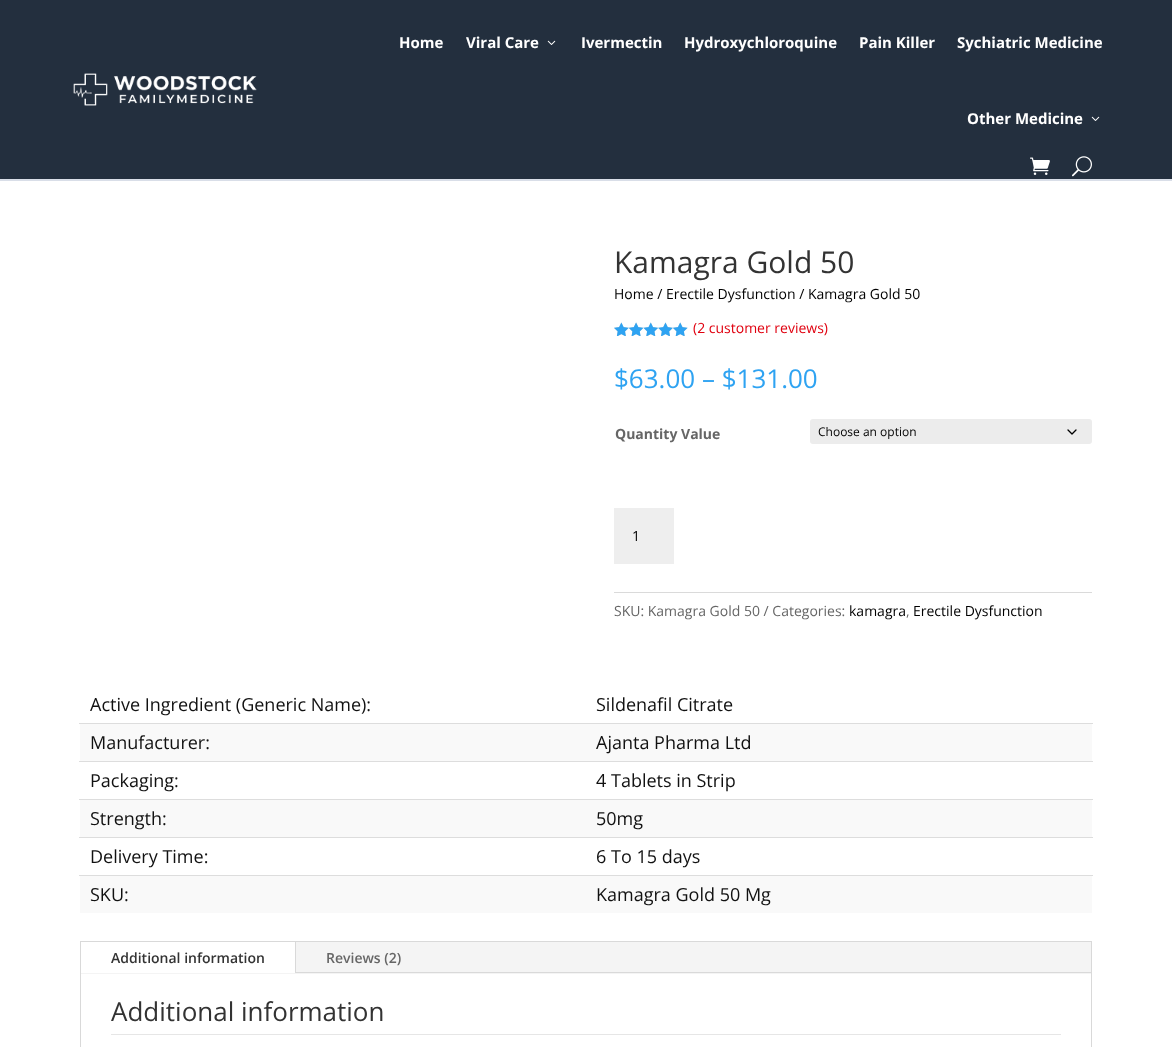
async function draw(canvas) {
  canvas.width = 1172;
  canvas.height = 1047;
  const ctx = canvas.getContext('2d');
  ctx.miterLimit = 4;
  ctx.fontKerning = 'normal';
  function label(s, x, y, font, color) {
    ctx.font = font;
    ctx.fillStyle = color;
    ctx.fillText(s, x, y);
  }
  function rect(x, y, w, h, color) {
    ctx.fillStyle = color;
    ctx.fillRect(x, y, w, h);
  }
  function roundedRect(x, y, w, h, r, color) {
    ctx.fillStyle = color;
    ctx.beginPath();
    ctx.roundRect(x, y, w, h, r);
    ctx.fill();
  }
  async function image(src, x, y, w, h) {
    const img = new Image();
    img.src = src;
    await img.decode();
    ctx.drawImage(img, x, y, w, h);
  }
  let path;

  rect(0, 0, 1172, 1047, '#fff');
  rect(0, 0, 1172, 179, '#232f3e');
  rect(0, 179, 1172, 2, '#d9dee8');
  await image('assets/img1.png', 73, 73, 184, 33);
  label('Home', 399, 48, 'bold 15px Open Sans', '#fff');
  label('Viral Care', 466, 48, 'bold 15px Open Sans', '#fff');
  await image('assets/img2.png', 547, 40, 9, 5);
  label('Ivermectin', 581, 48, 'bold 15px Open Sans', '#fff');
  label('Hydroxychloroquine', 684, 48, 'bold 15px Open Sans', '#fff');
  label('Pain Killer', 859, 48, 'bold 15px Open Sans', '#fff');
  label('Sychiatric Medicine', 957, 48, 'bold 15px Open Sans', '#fff');
  label('Other Medicine', 967, 124, 'bold 15px Open Sans', '#fff');
  await image('assets/img2.png', 1091, 116, 9, 5);
  await image('assets/img3.png', 1030, 157, 20, 18);
  await image('assets/img4.png', 1072, 156, 20, 21);
  label('Kamagra Gold 50', 614, 273, '30px Open Sans', '#333');
  label('Home / Erectile Dysfunction / Kamagra Gold 50', 614, 299, '14px Open Sans', '#000');
  await image('assets/img5.png', 614, 322, 74, 14);
  await image('assets/img6.png', 614, 322, 74, 14);
  label('(2 customer reviews)', 693, 333, '14px Open Sans', '#e0000f');
  label('$63.00 – $131.00', 614, 388, '26px Open Sans', '#2ea3f2');
  label('Quantity Value', 615, 439, 'bold 14px Open Sans', '#666');
  roundedRect(810, 419, 282, 25, 3, '#ececec');
  path = new Path2D('M1068 430L1072 434L1076 430');
  ctx.strokeStyle = '#000';
  ctx.lineWidth = 1.3;
  ctx.lineCap = 'round';
  ctx.lineJoin = 'round';
  ctx.stroke(path);
  label('Choose an option', 818, 436, '12px Open Sans', '#000');
  rect(614, 508, 60, 56, '#eee');
  label('1', 632, 541, '14px Open Sans', '#000');
  rect(614, 592, 478, 1, '#dadada');
  label('SKU: Kamagra Gold 50 / Categories:', 614, 616, '14px Open Sans', '#666');
  label('kamagra', 849, 616, '14px Open Sans', '#000');
  label(',', 906, 616, '14px Open Sans', '#666');
  label('Erectile Dysfunction', 913, 616, '14px Open Sans', '#000');
  label('Active Ingredient (Generic Name):', 90, 711, '18px Open Sans', '#111');
  label('Sildenafil Citrate', 596, 711, '18px Open Sans', '#111');
  rect(80, 724, 1012, 37, '#f9f9f9');
  label('Manufacturer:', 90, 749, '18px Open Sans', '#111');
  rect(79, 723, 1014, 1, '#ddd');
  label('Ajanta Pharma Ltd', 596, 749, '18px Open Sans', '#111');
  label('Packaging:', 90, 787, '18px Open Sans', '#111');
  rect(79, 761, 1014, 1, '#ddd');
  label('4 Tablets in Strip', 596, 787, '18px Open Sans', '#111');
  rect(80, 800, 1012, 37, '#f9f9f9');
  label('Strength:', 90, 825, '18px Open Sans', '#111');
  rect(79, 799, 1014, 1, '#ddd');
  label('50mg', 596, 825, '18px Open Sans', '#111');
  label('Delivery Time:', 90, 863, '18px Open Sans', '#111');
  rect(79, 837, 1014, 1, '#ddd');
  label('6 To 15 days', 596, 863, '18px Open Sans', '#111');
  rect(80, 876, 1012, 37, '#f9f9f9');
  label('SKU:', 90, 901, '18px Open Sans', '#111');
  rect(79, 875, 1014, 1, '#ddd');
  label('Kamagra Gold 50 Mg', 596, 901, '18px Open Sans', '#111');
  ctx.strokeStyle = '#d9d9d9';
  ctx.lineWidth = 1;
  ctx.lineJoin = 'miter';
  ctx.strokeRect(80.5, 941.5, 1011, 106);
  rect(81, 942, 1010, 32, '#f4f4f4');
  rect(81, 942, 214, 31, '#fff');
  rect(295, 942, 1, 31, '#d9d9d9');
  label('Additional information', 111, 963, '600 14px Open Sans', '#333');
  label('Reviews (2)', 326, 963, '600 14px Open Sans', '#666');
  rect(296, 972, 795, 1, '#d9d9d9');
  label('Additional information', 111, 1021, '26px Open Sans', '#333');
  rect(111, 1034, 950, 1, '#e6e6e6');
}

draw(document.querySelector('canvas'));
